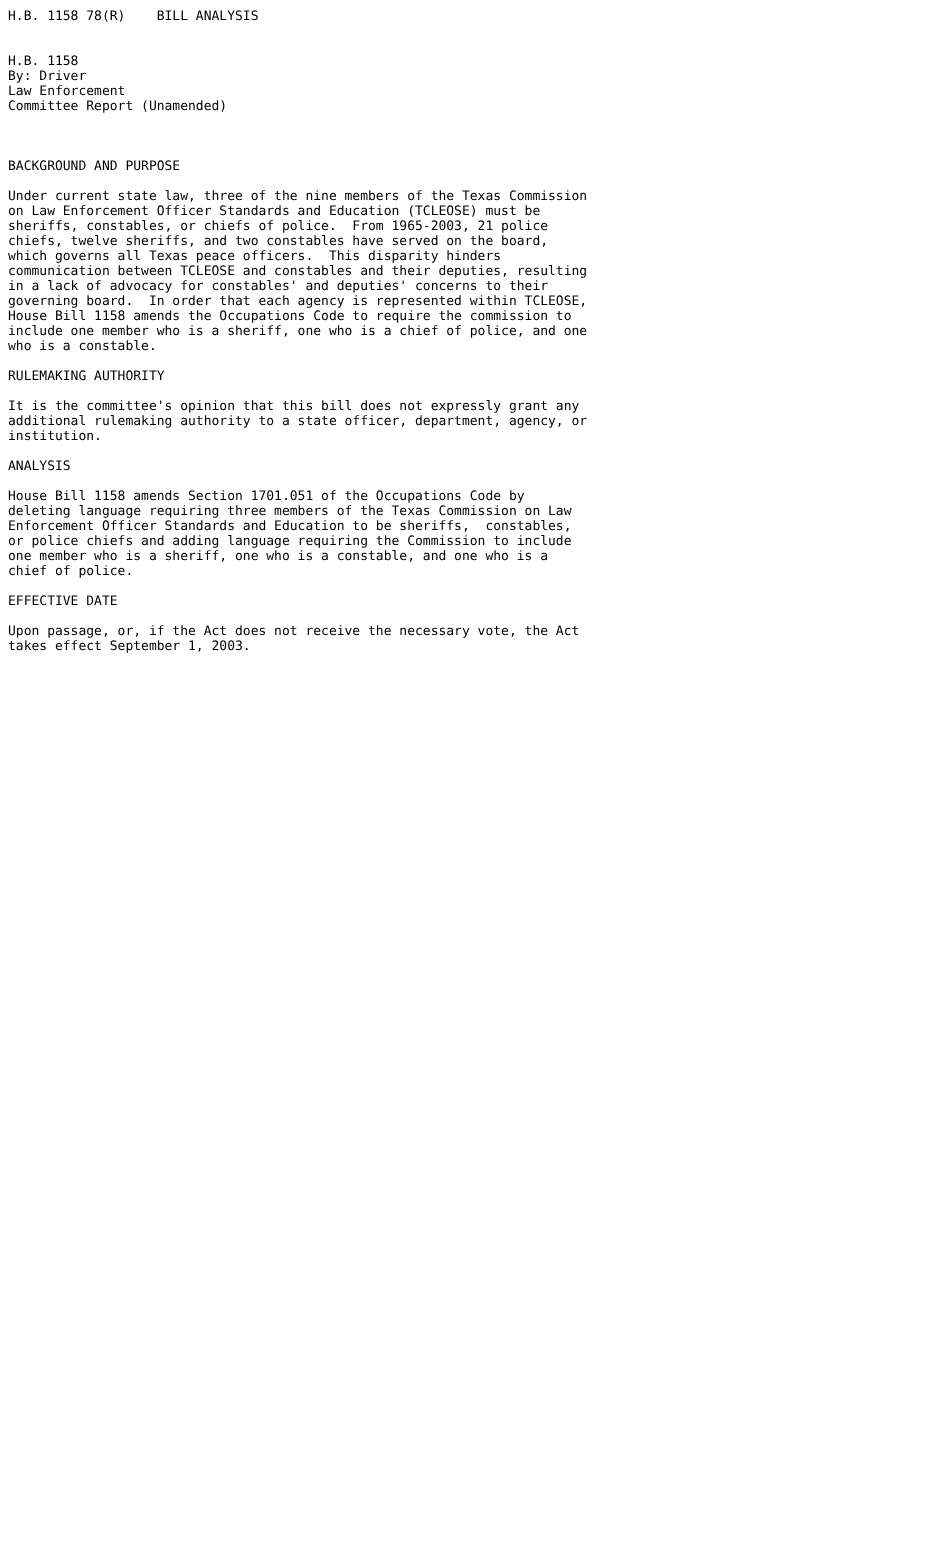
async function draw(canvas) {
  canvas.width = 934;
  canvas.height = 1562;
  const ctx = canvas.getContext('2d');
  ctx.miterLimit = 4;
  ctx.fontKerning = 'normal';
  function label(s, x, y, font, color) {
    ctx.font = font;
    ctx.fillStyle = color;
    ctx.fillText(s, x, y);
  }
  function rect(x, y, w, h, color) {
    ctx.fillStyle = color;
    ctx.fillRect(x, y, w, h);
  }

  rect(0, 0, 934, 1562, '#fff');
  label('H.B. 1158 78(R)    BILL ANALYSIS', 8, 20, '13px DejaVu Sans Mono', '#000');
  label('H.B. 1158', 8, 65, '13px DejaVu Sans Mono', '#000');
  label('By: Driver', 8, 80, '13px DejaVu Sans Mono', '#000');
  label('Law Enforcement', 8, 95, '13px DejaVu Sans Mono', '#000');
  label('Committee Report (Unamended)', 8, 110, '13px DejaVu Sans Mono', '#000');
  label('BACKGROUND AND PURPOSE', 8, 170, '13px DejaVu Sans Mono', '#000');
  label('Under current state law, three of the nine members of the Texas Commission', 8, 200, '13px DejaVu Sans Mono', '#000');
  label('on Law Enforcement Officer Standards and Education (TCLEOSE) must be', 8, 215, '13px DejaVu Sans Mono', '#000');
  label('sheriffs, constables, or chiefs of police.  From 1965-2003, 21 police', 8, 230, '13px DejaVu Sans Mono', '#000');
  label('chiefs, twelve sheriffs, and two constables have served on the board,', 8, 245, '13px DejaVu Sans Mono', '#000');
  label('which governs all Texas peace officers.  This disparity hinders', 8, 260, '13px DejaVu Sans Mono', '#000');
  label('communication between TCLEOSE and constables and their deputies, resulting', 8, 275, '13px DejaVu Sans Mono', '#000');
  label('in a lack of advocacy for constables\' and deputies\' concerns to their', 8, 290, '13px DejaVu Sans Mono', '#000');
  label('governing board.  In order that each agency is represented within TCLEOSE,', 8, 305, '13px DejaVu Sans Mono', '#000');
  label('House Bill 1158 amends the Occupations Code to require the commission to', 8, 320, '13px DejaVu Sans Mono', '#000');
  label('include one member who is a sheriff, one who is a chief of police, and one', 8, 335, '13px DejaVu Sans Mono', '#000');
  label('who is a constable.', 8, 350, '13px DejaVu Sans Mono', '#000');
  label('RULEMAKING AUTHORITY', 8, 380, '13px DejaVu Sans Mono', '#000');
  label('It is the committee\'s opinion that this bill does not expressly grant any', 8, 410, '13px DejaVu Sans Mono', '#000');
  label('additional rulemaking authority to a state officer, department, agency, or', 8, 425, '13px DejaVu Sans Mono', '#000');
  label('institution.', 8, 440, '13px DejaVu Sans Mono', '#000');
  label('ANALYSIS', 8, 470, '13px DejaVu Sans Mono', '#000');
  label('House Bill 1158 amends Section 1701.051 of the Occupations Code by', 8, 500, '13px DejaVu Sans Mono', '#000');
  label('deleting language requiring three members of the Texas Commission on Law', 8, 515, '13px DejaVu Sans Mono', '#000');
  label('Enforcement Officer Standards and Education to be sheriffs,  constables,', 8, 530, '13px DejaVu Sans Mono', '#000');
  label('or police chiefs and adding language requiring the Commission to include', 8, 545, '13px DejaVu Sans Mono', '#000');
  label('one member who is a sheriff, one who is a constable, and one who is a', 8, 560, '13px DejaVu Sans Mono', '#000');
  label('chief of police.', 8, 575, '13px DejaVu Sans Mono', '#000');
  label('EFFECTIVE DATE', 8, 605, '13px DejaVu Sans Mono', '#000');
  label('Upon passage, or, if the Act does not receive the necessary vote, the Act', 8, 635, '13px DejaVu Sans Mono', '#000');
  label('takes effect September 1, 2003.', 8, 650, '13px DejaVu Sans Mono', '#000');
}

draw(document.querySelector('canvas'));
